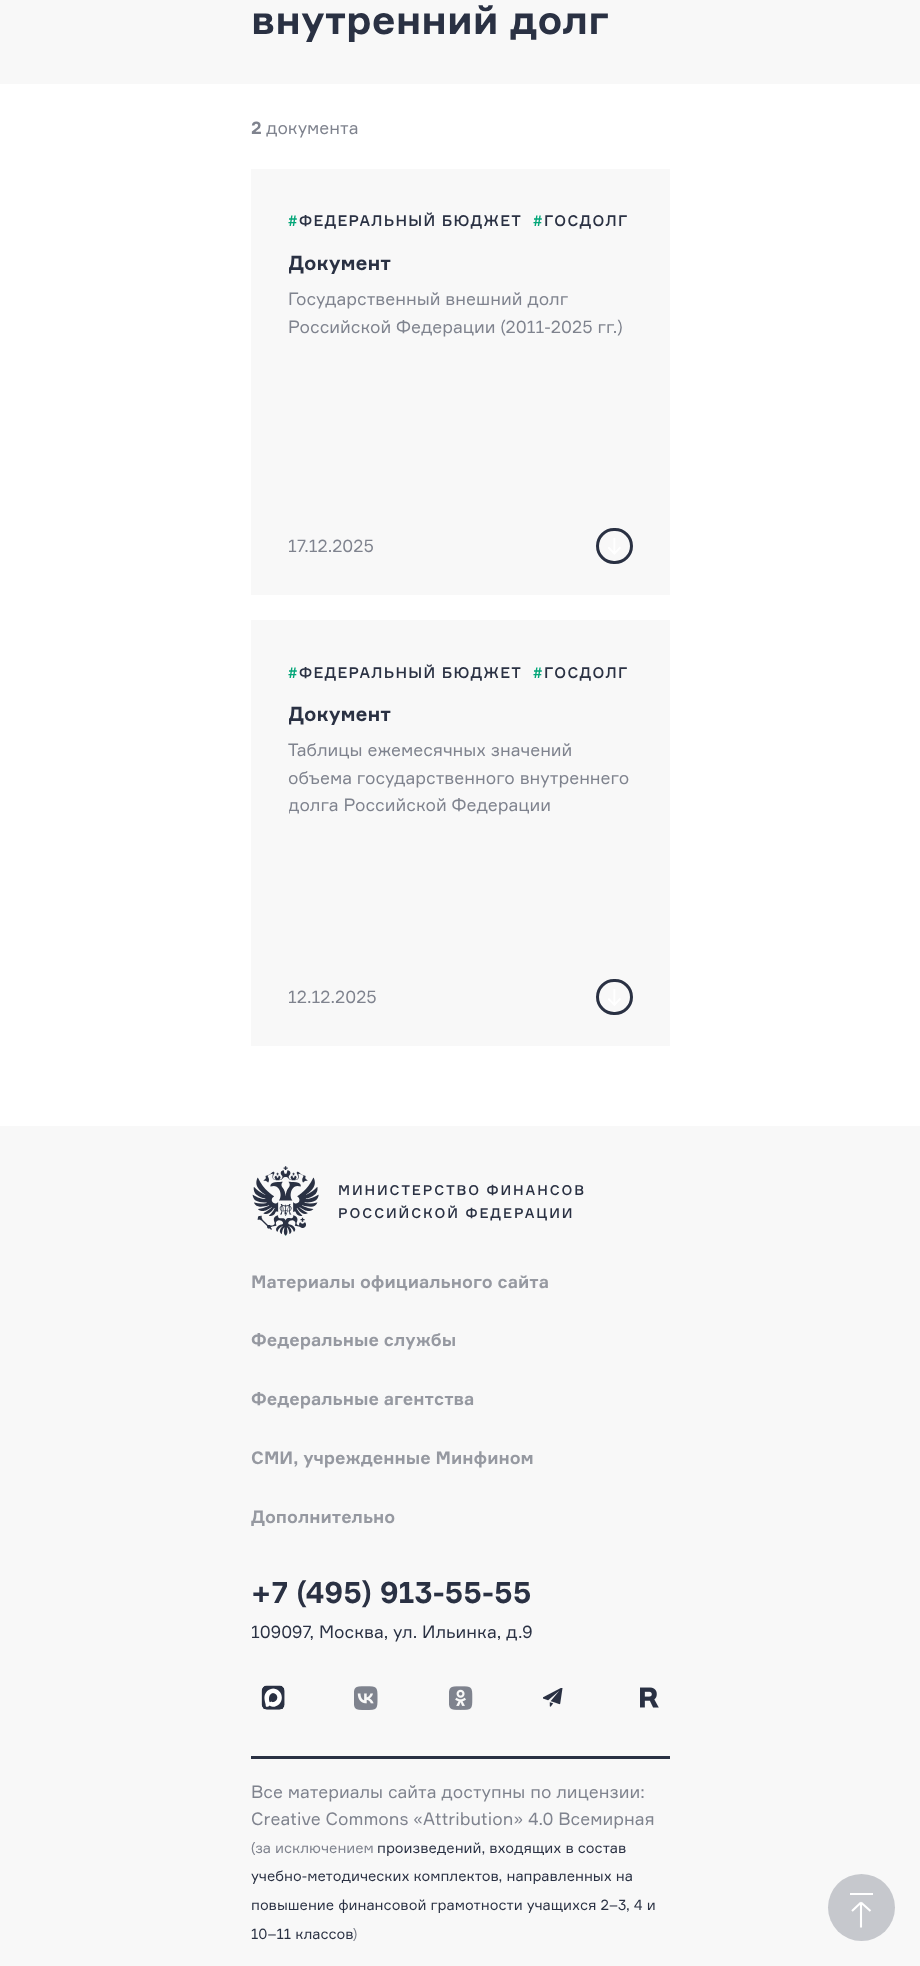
async function draw(canvas) {
  canvas.width = 920;
  canvas.height = 1966;
  const ctx = canvas.getContext('2d');
  ctx.miterLimit = 4;
  ctx.fontKerning = 'normal';
  function label(s, x, y, font, color) {
    ctx.font = font;
    ctx.fillStyle = color;
    ctx.fillText(s, x, y);
  }
  function rect(x, y, w, h, color) {
    ctx.fillStyle = color;
    ctx.fillRect(x, y, w, h);
  }
  async function image(src, x, y, w, h) {
    const img = new Image();
    img.src = src;
    await img.decode();
    ctx.drawImage(img, x, y, w, h);
  }
  let path;

  rect(0, 0, 920, 1966, '#fff');
  rect(0, 0, 920, 84, '#f8f8f8');
  label('внутренний долг', 251, 34, 'bold 40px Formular', '#2a3143');
  label('2', 251, 134, 'bold 17.5px Formular', '#7f838e');
  label('документа', 266, 134, '17.5px Formular', '#7f838e');
  rect(251, 169, 419, 426, '#f8f8f8');
  ctx.letterSpacing = '1.25px';
  label('#', 288, 226, '500 15px Formular', '#03a678');
  label('ФЕДЕРАЛЬНЫЙ БЮДЖЕТ', 299, 226, '500 15px Formular', '#2a3143');
  label('#', 533, 226, '500 15px Formular', '#03a678');
  label('ГОСДОЛГ', 544, 226, '500 15px Formular', '#2a3143');
  ctx.save();
  ctx.beginPath();
  ctx.rect(289, 248, 344, 30);
  ctx.clip();
  ctx.letterSpacing = '0px';
  label('Документ', 288, 270, 'bold 20px Formular', '#2a3143');
  ctx.restore();
  ctx.letterSpacing = '0px';
  label('Государственный внешний долг', 288, 305, '17.5px Formular', '#7f838e');
  label('Российской Федерации (2011-2025 гг.)', 288, 333, '17.5px Formular', '#7f838e');
  label('17.12.2025', 288, 552, '17.5px Formular', '#7f838e');
  await image('assets/img1.png', 608, 538, 13, 17);
  ctx.beginPath();
  ctx.roundRect(597.5, 529.5, 34, 33, 16.5);
  ctx.strokeStyle = '#2a3143';
  ctx.lineWidth = 3;
  ctx.stroke();
  rect(251, 620, 419, 426, '#f8f8f8');
  ctx.letterSpacing = '1.25px';
  label('#', 288, 678, '500 15px Formular', '#03a678');
  label('ФЕДЕРАЛЬНЫЙ БЮДЖЕТ', 299, 678, '500 15px Formular', '#2a3143');
  label('#', 533, 678, '500 15px Formular', '#03a678');
  label('ГОСДОЛГ', 544, 678, '500 15px Formular', '#2a3143');
  ctx.save();
  ctx.beginPath();
  ctx.rect(289, 699, 344, 30);
  ctx.clip();
  ctx.letterSpacing = '0px';
  label('Документ', 288, 721, 'bold 20px Formular', '#2a3143');
  ctx.restore();
  ctx.letterSpacing = '0px';
  label('Таблицы ежемесячных значений', 288, 756, '17.5px Formular', '#7f838e');
  label('объема государственного внутреннего', 288, 784, '17.5px Formular', '#7f838e');
  ctx.save();
  ctx.beginPath();
  ctx.rect(289, 736, 344, 83);
  ctx.clip();
  label('долга Российской Федерации', 288, 811, '17.5px Formular', '#7f838e');
  ctx.restore();
  label('12.12.2025', 288, 1003, '17.5px Formular', '#7f838e');
  await image('assets/img2.png', 608, 989, 13, 17);
  ctx.beginPath();
  ctx.roundRect(597.5, 980.5, 34, 33, 16.5);
  ctx.stroke();
  rect(0, 1126, 920, 840, '#f8f8f8');
  await image('assets/img3.png', 252, 1166, 67, 70);
  ctx.letterSpacing = '1.9px';
  label('МИНИСТЕРСТВО ФИНАНСОВ', 338, 1195, '500 13.75px Formular', '#2a3143');
  label('РОССИЙСКОЙ ФЕДЕРАЦИИ', 338, 1218, '500 13.75px Formular', '#2a3143');
  ctx.letterSpacing = '0px';
  label('+7 (495) 913-55-55', 251, 1603, 'bold 30px Formular', '#2a3143');
  label('109097, Москва, ул. Ильинка, д.9', 251, 1638, '17.5px Formular', '#2a3143');
  await image('assets/img4.png', 261, 1685, 24, 25);
  await image('assets/img5.png', 354, 1686, 24, 24);
  await image('assets/img6.png', 449, 1686, 24, 24);
  await image('assets/img7.png', 543, 1688, 20, 19);
  await image('assets/img8.png', 640, 1687, 19, 21);
  label('Материалы официального сайта', 251, 1288, 'bold 17.5px Formular', '#9699a1');
  label('Федеральные службы', 251, 1346, 'bold 17.5px Formular', '#9699a1');
  label('Федеральные агентства', 251, 1405, 'bold 17.5px Formular', '#9699a1');
  label('СМИ, учрежденные Минфином', 251, 1464, 'bold 17.5px Formular', '#9699a1');
  label('Дополнительно', 251, 1523, 'bold 17.5px Formular', '#9699a1');
  rect(251, 1756, 419, 3, '#2a3143');
  label('Все материалы сайта доступны по лицензии:', 251, 1798, '17.5px Formular', '#7f838e');
  label('Creative Commons «Attribution» 4.0 Всемирная', 251, 1825, '17.5px Formular', '#7f838e');
  label('(за исключением', 251, 1853, '14.6px Formular', '#7f838e');
  label('произведений, входящих в состав', 377, 1853, '14.6px Formular', '#2a3143');
  label('учебно-методических комплектов, направленных на', 251, 1881, '14.6px Formular', '#2a3143');
  label('повышение финансовой грамотности учащихся 2–3, 4 и', 251, 1910, '14.6px Formular', '#2a3143');
  label('10–11 классов', 251, 1939, '14.6px Formular', '#2a3143');
  label(')', 353, 1939, '14.6px Formular', '#7f838e');
  ctx.fillStyle = '#c6c8cd';
  ctx.beginPath();
  ctx.arc(861.5, 1907.5, 33.5, 0, 2 * Math.PI);
  ctx.fill();
  rect(850, 1893, 23, 2, '#fff');
  path = new Path2D('M852 1911L861 1902.5M870.5 1911L861 1902.5M861 1902.5V1927.5');
  ctx.strokeStyle = '#fff';
  ctx.lineWidth = 2.1;
  ctx.stroke(path);
}

draw(document.querySelector('canvas'));
